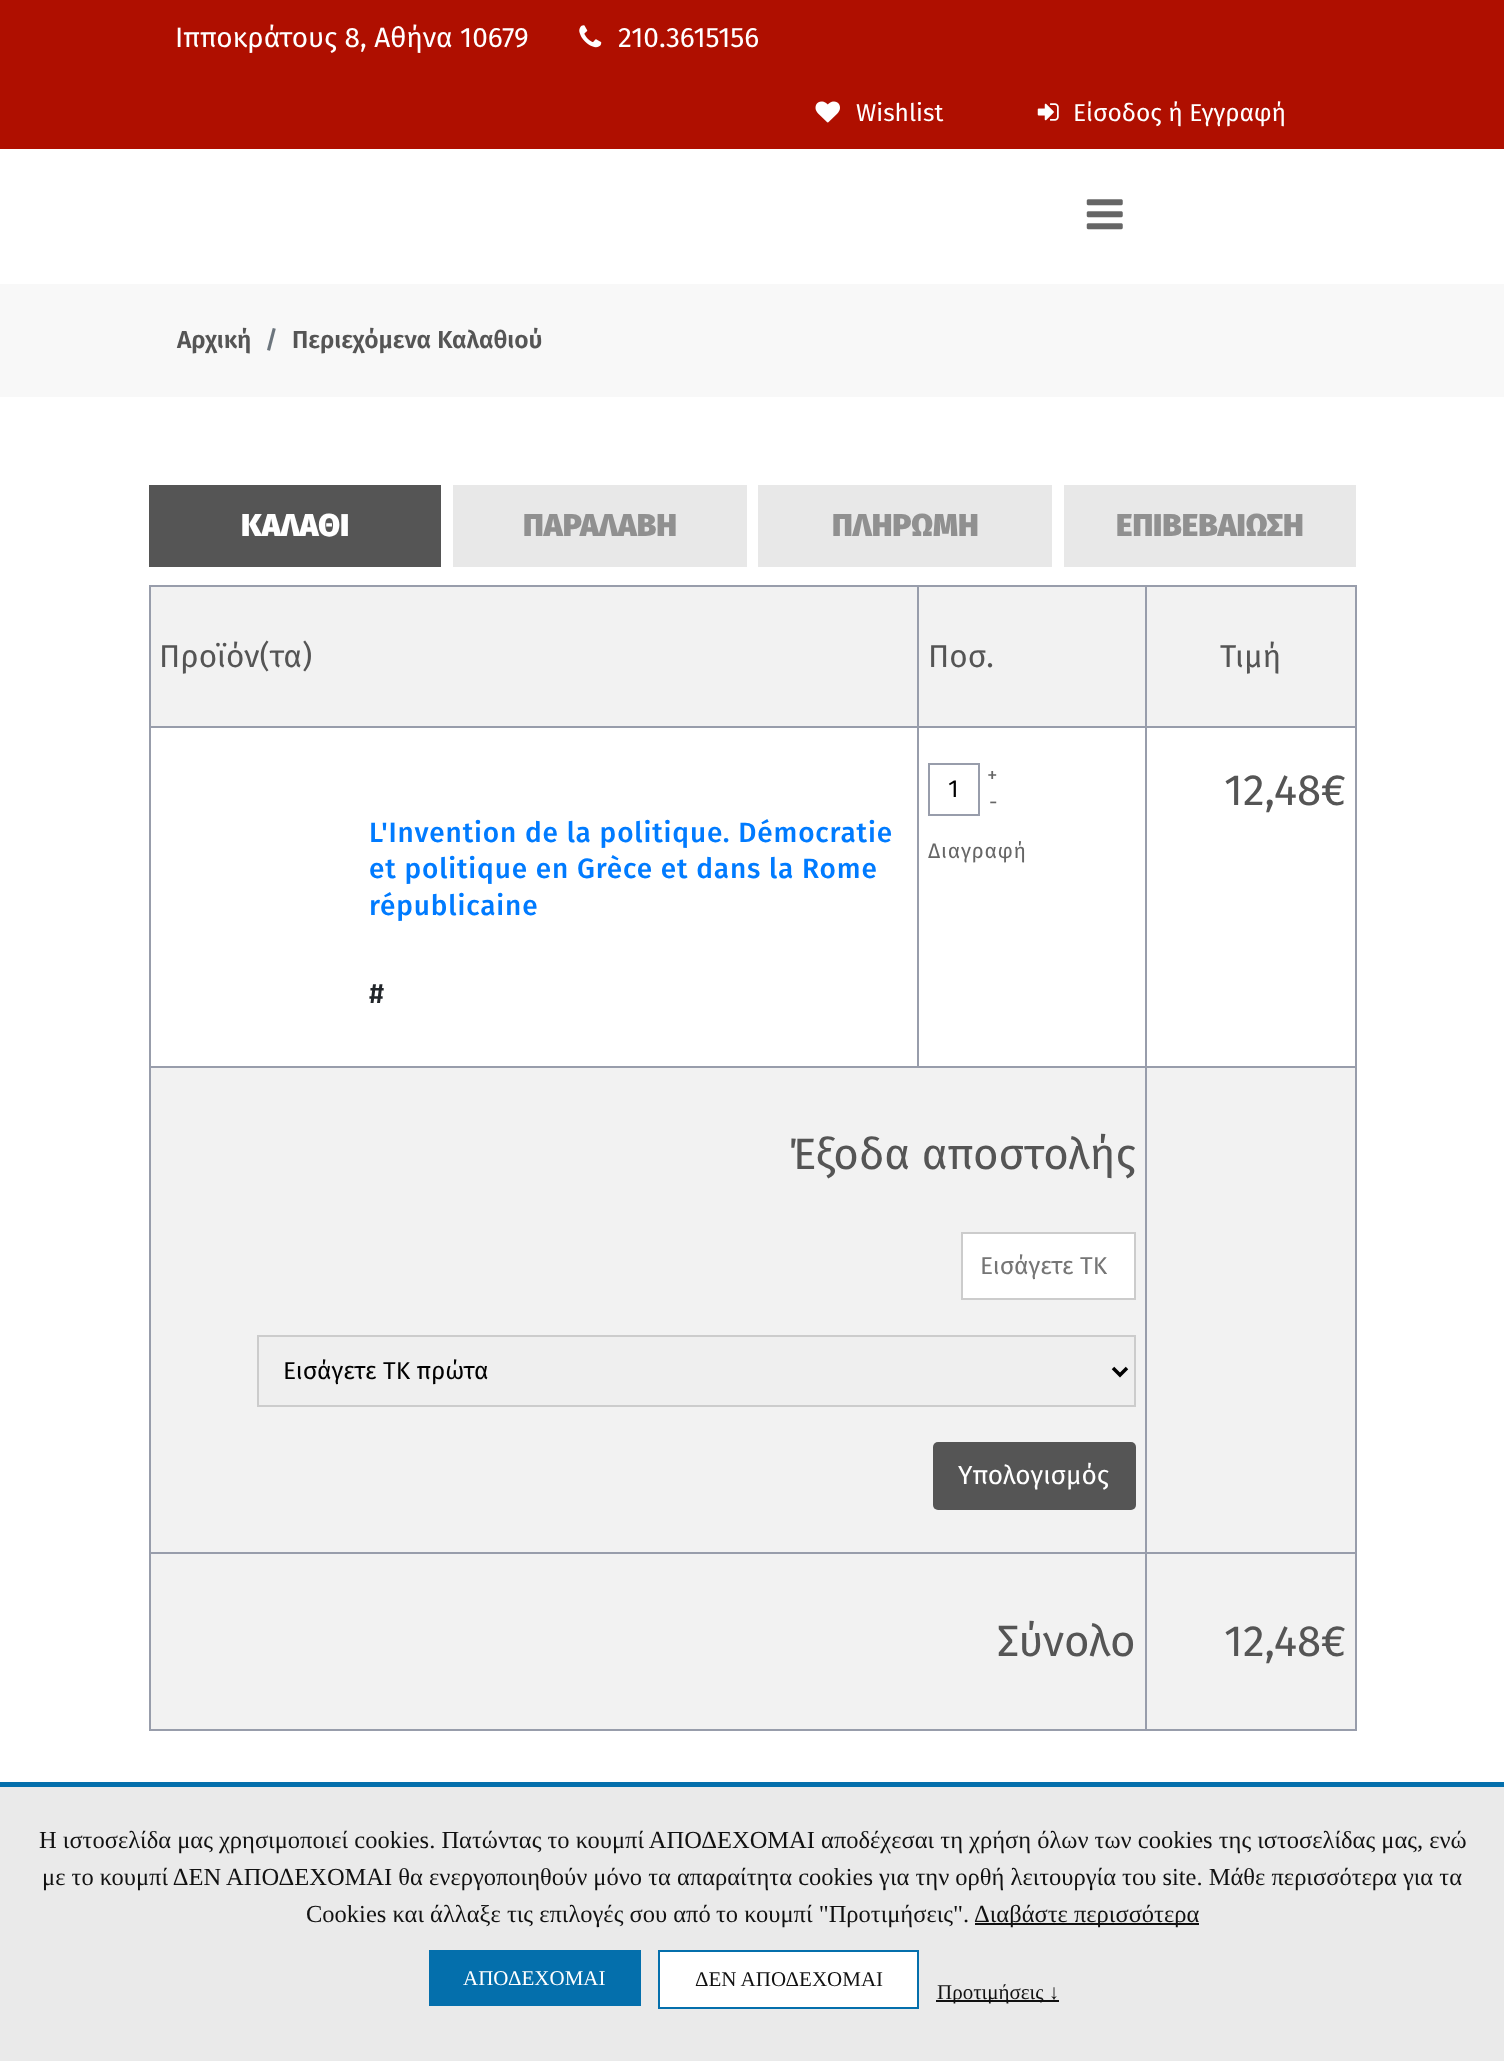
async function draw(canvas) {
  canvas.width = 1504;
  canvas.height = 2061;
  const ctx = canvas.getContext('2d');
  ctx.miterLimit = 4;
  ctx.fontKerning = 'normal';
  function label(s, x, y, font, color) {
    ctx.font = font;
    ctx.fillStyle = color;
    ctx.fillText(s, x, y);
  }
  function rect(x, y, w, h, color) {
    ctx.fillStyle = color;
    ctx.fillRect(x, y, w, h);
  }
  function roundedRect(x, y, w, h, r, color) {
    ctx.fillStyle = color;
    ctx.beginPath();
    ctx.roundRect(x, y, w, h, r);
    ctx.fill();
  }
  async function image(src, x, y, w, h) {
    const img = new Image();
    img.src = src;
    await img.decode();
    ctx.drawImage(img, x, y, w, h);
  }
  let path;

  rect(0, 0, 1504, 2061, '#fff');
  rect(0, 0, 1504, 149, '#af0f00');
  label('Ιπποκράτους 8, Αθήνα 10679', 175, 47, '28px Fira Sans', '#fff');
  await image('assets/img1.png', 579, 25, 23, 23);
  label('210.3615156', 618, 47, '28px Fira Sans', '#fff');
  await image('assets/img2.png', 815, 101, 25, 22);
  label('Wishlist', 856, 121, '24.5px Fira Sans', '#fff');
  await image('assets/img3.png', 1037, 103, 22, 18);
  label('Είσοδος ή Εγγραφή', 1073, 121, '24.5px Fira Sans', '#fff');
  await image('assets/img4.png', 1086, 199, 37, 31);
  rect(0, 284, 1504, 113, '#f8f8f8');
  label('Αρχική', 177, 348, '600 24.5px Fira Sans', '#555');
  label('/', 265, 348, '600 24.5px Fira Sans', '#6c757d');
  label('Περιεχόμενα Καλαθιού', 292, 348, '600 24.5px Fira Sans', '#555');
  rect(149, 485, 292, 82, '#555');
  label('ΚΑΛΑΘΙ', 241, 536, '900 31.5px Fira Sans', '#fff');
  rect(453, 485, 294, 82, '#e8e8e8');
  label('ΠΑΡΑΛΑΒΗ', 523, 536, '900 31.5px Fira Sans', '#909090');
  rect(758, 485, 294, 82, '#e8e8e8');
  label('ΠΛΗΡΩΜΗ', 832, 536, '900 31.5px Fira Sans', '#909090');
  rect(1064, 485, 292, 82, '#e8e8e8');
  label('ΕΠΙΒΕΒΑΙΩΣΗ', 1116, 536, '900 31.5px Fira Sans', '#909090');
  rect(149, 585, 1207, 2, '#989dab');
  rect(149, 585, 2, 1146, '#989dab');
  rect(151, 587, 766, 139, '#f2f2f2');
  rect(1355, 585, 2, 1146, '#989dab');
  rect(1145, 1729, 211, 2, '#989dab');
  rect(1145, 1552, 2, 179, '#989dab');
  rect(1145, 1552, 211, 2, '#989dab');
  rect(1145, 1066, 2, 488, '#989dab');
  rect(1145, 1066, 211, 2, '#989dab');
  rect(1145, 726, 2, 342, '#989dab');
  rect(1145, 726, 211, 2, '#989dab');
  rect(1145, 585, 2, 143, '#989dab');
  rect(917, 1066, 229, 2, '#989dab');
  rect(917, 726, 2, 342, '#989dab');
  rect(917, 726, 229, 2, '#989dab');
  rect(917, 585, 2, 143, '#989dab');
  rect(149, 726, 770, 2, '#989dab');
  label('Προϊόν(τα)', 159, 667, '31.5px Fira Sans', '#555');
  rect(919, 587, 226, 139, '#f2f2f2');
  label('Ποσ.', 928, 667, '31.5px Fira Sans', '#555');
  rect(1147, 587, 208, 139, '#f2f2f2');
  label('Τιμή', 1220, 667, '31.5px Fira Sans', '#555');
  ctx.strokeStyle = '#989dab';
  ctx.lineWidth = 2;
  ctx.strokeRect(929, 764, 50, 51);
  label('1', 948, 797, '24.5px Fira Sans', '#000');
  ctx.letterSpacing = '0.75px';
  label('+', 987, 782, '21px Fira Sans', '#666');
  label('-', 989, 809, '21px Fira Sans', '#666');
  label('Διαγραφή', 928, 858, '21px Fira Sans', '#666');
  ctx.letterSpacing = '0px';
  label('12,48€', 1224, 805, '43.75px Fira Sans', '#555');
  rect(149, 1066, 770, 2, '#989dab');
  ctx.letterSpacing = '0.85px';
  label('L\'Invention de la politique. Démocratie', 369, 842, '500 28px Fira Sans', '#007bff');
  label('et politique en Grèce et dans la Rome', 369, 878, '500 28px Fira Sans', '#007bff');
  label('républicaine', 369, 915, '500 28px Fira Sans', '#007bff');
  label('#', 369, 1003, '500 28px Fira Sans', '#212529');
  rect(151, 1068, 994, 484, '#f2f2f2');
  rect(149, 1552, 997, 2, '#989dab');
  ctx.letterSpacing = '0px';
  label('Έξοδα αποστολής', 789, 1169, '43.75px Fira Sans', '#555');
  ctx.fillStyle = '#fff';
  ctx.beginPath();
  ctx.rect(962, 1233, 173, 66);
  ctx.fill();
  ctx.strokeStyle = '#ccc';
  ctx.stroke();
  label('Εισάγετε ΤΚ', 980, 1274, '24.5px Fira Sans', '#757575');
  ctx.fillStyle = '#efefef';
  ctx.beginPath();
  ctx.rect(258, 1336, 877, 70);
  ctx.fill();
  ctx.stroke();
  path = new Path2D('M1113 1368L1120 1375L1127 1368');
  ctx.strokeStyle = '#000';
  ctx.lineWidth = 3.5;
  ctx.stroke(path);
  label('Εισάγετε ΤΚ πρώτα', 283, 1379, '24.5px Fira Sans', '#000');
  roundedRect(933, 1442, 203, 68, 5, '#555');
  label('Υπολογισμός', 958, 1484, '26.25px Fira Sans', '#fff');
  rect(1147, 1068, 208, 484, '#f2f2f2');
  rect(151, 1554, 994, 175, '#f2f2f2');
  rect(149, 1729, 997, 2, '#989dab');
  label('Σύνολο', 997, 1656, '43.75px Fira Sans', '#555');
  rect(1147, 1554, 208, 175, '#f2f2f2');
  label('12,48€', 1224, 1656, '43.75px Fira Sans', '#555');
  rect(0, 1787, 1504, 274, '#eaeaea');
  rect(0, 1782, 1504, 5, '#046fac');
  label('Η ιστοσελίδα μας χρησιμοποιεί cookies. Πατώντας το κουμπί ΑΠΟΔΕΧΟΜΑΙ αποδέχεσαι τη χρήση όλων των cookies της ιστοσελίδας μας, ενώ', 39, 1848, '24.5px Liberation Serif', '#111');
  label('με το κουμπί ΔΕΝ ΑΠΟΔΕΧΟΜΑΙ θα ενεργοποιηθούν μόνο τα απαραίτητα cookies για την ορθή λειτουργία του site. Μάθε περισσότερα για τα', 42, 1885, '24.5px Liberation Serif', '#111');
  label('Cookies και άλλαξε τις επιλογές σου από', 306, 1922, '24.5px Liberation Serif', '#111');
  label('το κουμπί "Προτιμήσεις".', 716, 1922, '24.5px Liberation Serif', '#111');
  rect(975, 1923, 224, 2, '#111');
  label('Διαβάστε περισσότερα', 974, 1922, '24.5px Liberation Serif', '#111');
  rect(429, 1950, 212, 56, '#046fac');
  label('ΑΠΟΔΕΧΟΜΑΙ', 463, 1985, '21px Liberation Serif', '#fff');
  ctx.beginPath();
  ctx.rect(659, 1951, 259, 57);
  ctx.fill();
  ctx.strokeStyle = '#046fac';
  ctx.lineWidth = 2;
  ctx.stroke();
  label('ΔΕΝ ΑΠΟΔΕΧΟΜΑΙ', 695, 1986, '21px Liberation Serif', '#111');
  rect(936, 2000, 123, 2, '#111');
  label('Προτιμήσεις ↓', 937, 1999, '21px Liberation Serif', '#111');
}

draw(document.querySelector('canvas'));
